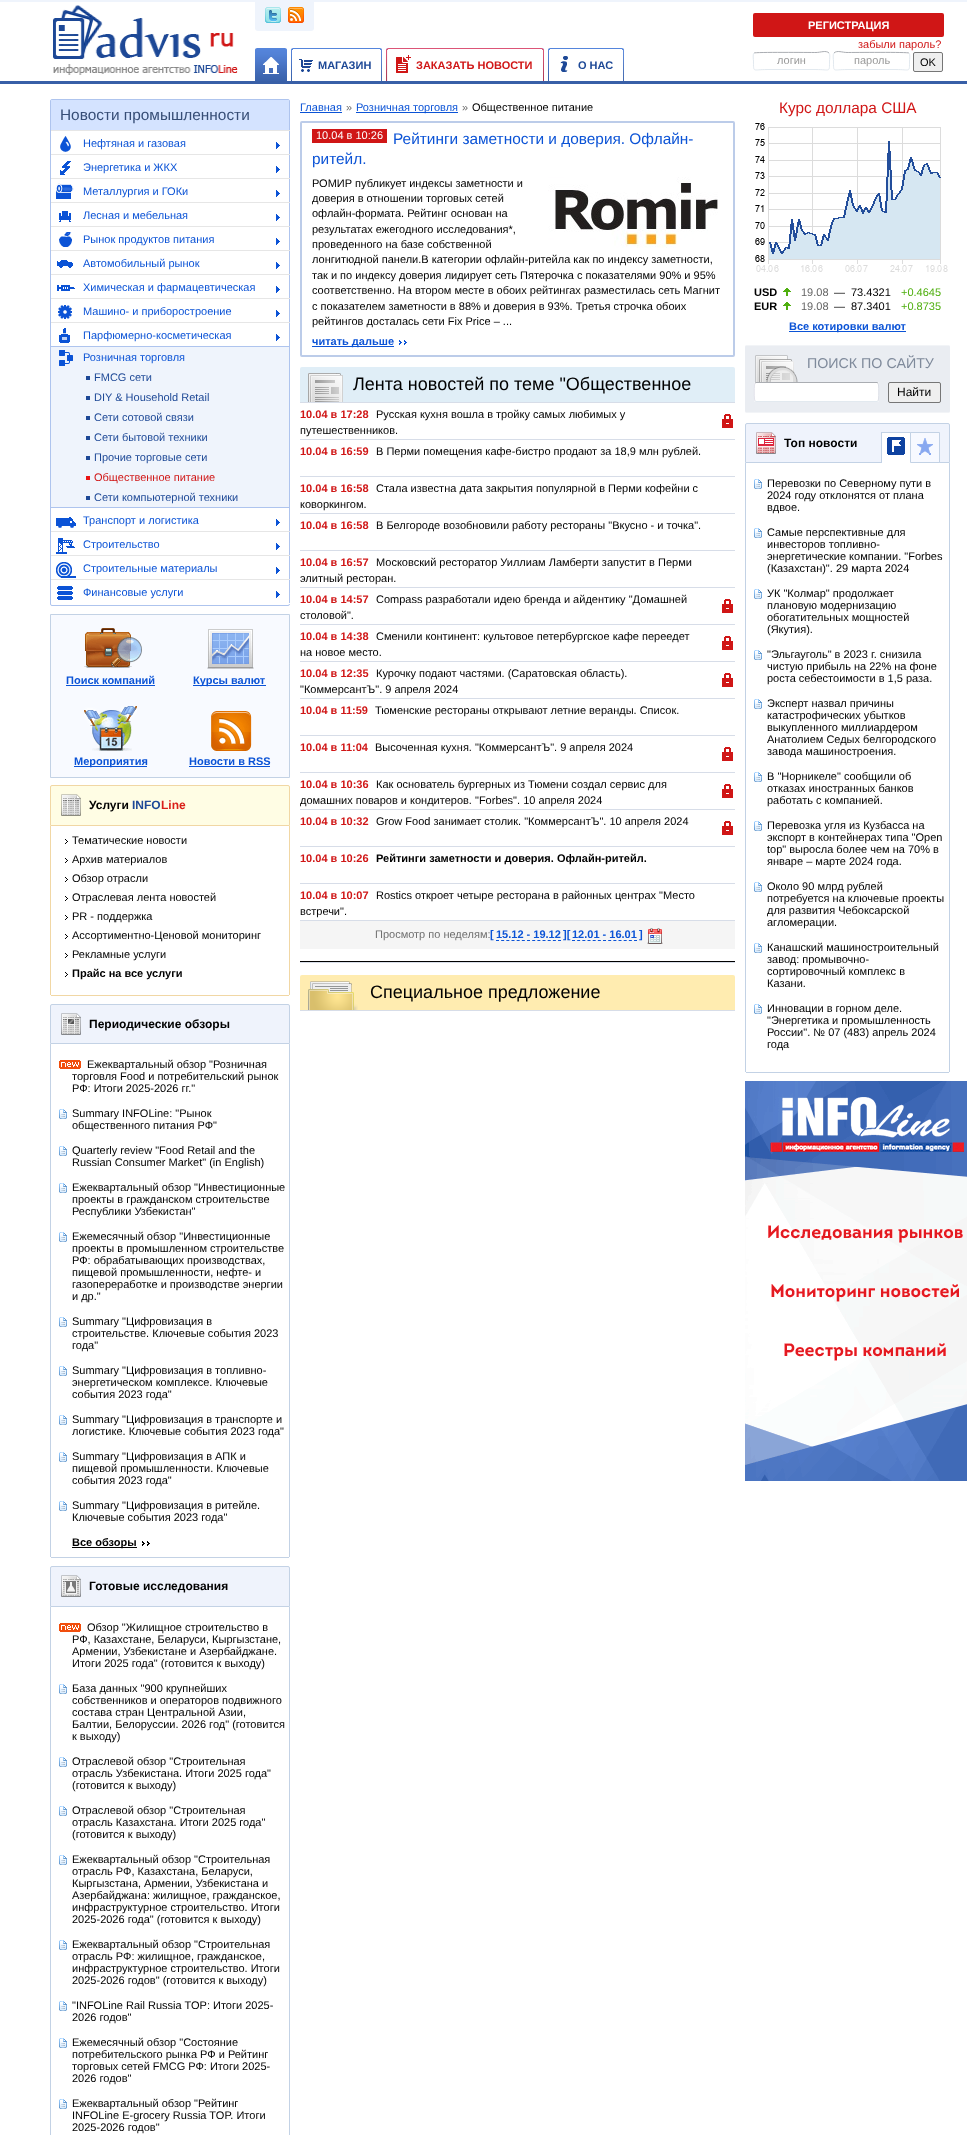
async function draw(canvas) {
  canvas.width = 967;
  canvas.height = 2135;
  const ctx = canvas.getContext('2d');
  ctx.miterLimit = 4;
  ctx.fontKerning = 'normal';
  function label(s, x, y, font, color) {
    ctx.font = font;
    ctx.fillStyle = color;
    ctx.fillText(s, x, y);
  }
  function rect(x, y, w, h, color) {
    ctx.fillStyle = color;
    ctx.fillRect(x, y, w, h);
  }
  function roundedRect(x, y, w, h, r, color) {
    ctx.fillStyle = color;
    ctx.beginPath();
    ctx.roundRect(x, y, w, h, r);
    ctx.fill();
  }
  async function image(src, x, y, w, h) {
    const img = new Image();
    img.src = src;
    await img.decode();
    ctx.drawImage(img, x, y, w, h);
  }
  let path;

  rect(0, 0, 967, 2135, '#fff');
  rect(0, 0, 967, 2, '#eff4fc');
  rect(0, 81, 967, 3, '#385fa7');
  await image('assets/img1.png', 53, 5, 185, 70);
  ctx.fillStyle = '#eff4fc';
  ctx.beginPath();
  ctx.roundRect(255, 2, 59, 29, [0, 0, 3, 3]);
  ctx.fill();
  await image('assets/img2.png', 265, 7, 16, 16);
  await image('assets/img3.png', 288, 7, 16, 16);
  await image('assets/img4.png', 255, 48, 1, 33);
  await image('assets/img5.png', 256, 48, 31, 33);
  await image('assets/img6.png', 291, 48, 89, 33);
  await image('assets/img7.png', 380, 48, 2, 33);
  await image('assets/img8.png', 299, 59, 14, 13);
  label('МАГАЗИН', 318, 69, 'bold 11px Liberation Sans', '#1d4896');
  await image('assets/img9.png', 386, 48, 156, 33);
  await image('assets/img10.png', 542, 48, 2, 33);
  await image('assets/img11.png', 396, 55, 15, 18);
  label('ЗАКАЗАТЬ НОВОСТИ', 416, 69, 'bold 11px Liberation Sans', '#d01616');
  await image('assets/img12.png', 548, 48, 74, 33);
  await image('assets/img7.png', 622, 48, 2, 33);
  await image('assets/img13.png', 560, 56, 8, 16);
  label('О НАС', 578, 69, 'bold 11px Liberation Sans', '#1d4896');
  roundedRect(753, 13, 191, 24, 2, '#d01616');
  label('РЕГИСТРАЦИЯ', 808, 29, 'bold 11px Liberation Sans', '#fff');
  label('забыли пароль?', 858, 48, '11px Liberation Sans', '#d01616');
  path = new Path2D('M754 53C755 52 809.5 52.5 816 52.5C820.5 52.5 826 50 829 53');
  ctx.strokeStyle = '#aaadb2';
  ctx.stroke(path);
  path = new Path2D('M829 53C830.5 54.5 829.5 59.5 829.5 61C829.5 73 830.5 69.5 816 69.5H767C752.5 69.5 753.5 73 753.5 61C753.5 59.5 752.5 54.5 754 53');
  ctx.strokeStyle = '#e2e9ef';
  ctx.stroke(path);
  path = new Path2D('M834 53C837 50 842.5 52.5 847 52.5C853.5 52.5 908 52 909 53');
  ctx.strokeStyle = '#aaadb2';
  ctx.stroke(path);
  path = new Path2D('M909 53C910.5 54.5 909.5 59.5 909.5 61C909.5 73 910.5 69.5 896 69.5H847C832.5 69.5 833.5 73 833.5 61C833.5 59.5 832.5 54.5 834 53');
  ctx.strokeStyle = '#e2e9ef';
  ctx.stroke(path);
  label('логин', 777, 64, '11px Liberation Sans', '#999');
  label('пароль', 854, 64, '11px Liberation Sans', '#999');
  ctx.fillStyle = '#efefef';
  ctx.beginPath();
  ctx.roundRect(913.5, 52.5, 29, 19, 1.5);
  ctx.fill();
  ctx.strokeStyle = '#767676';
  ctx.stroke();
  label('OK', 920, 66, '11px Liberation Sans', '#000');
  ctx.beginPath();
  ctx.roundRect(50.5, 99.5, 239, 506, 1.5);
  ctx.strokeStyle = '#aec4ee';
  ctx.stroke();
  rect(51, 100, 238, 30, '#d4e3ff');
  label('Новости промышленности', 60, 120, '15.4px Liberation Sans', '#364d76');
  rect(51, 130, 239, 1, '#e6e6e6');
  await image('assets/img14.png', 60, 136, 11, 16);
  label('Нефтяная и газовая', 83, 147, '11px Liberation Sans', '#0b53d6');
  await image('assets/img15.png', 276, 142, 4, 7);
  rect(51, 154, 239, 1, '#e6e6e6');
  await image('assets/img16.png', 60, 161, 11, 14);
  label('Энергетика и ЖКХ', 83, 171, '11px Liberation Sans', '#0b53d6');
  await image('assets/img15.png', 276, 166, 4, 7);
  rect(51, 178, 239, 1, '#e6e6e6');
  await image('assets/img17.png', 56, 183, 18, 16);
  label('Металлургия и ГОКи', 83, 195, '11px Liberation Sans', '#0b53d6');
  await image('assets/img15.png', 276, 190, 4, 7);
  rect(51, 202, 239, 1, '#e6e6e6');
  await image('assets/img18.png', 59, 211, 12, 11);
  label('Лесная и мебельная', 83, 219, '11px Liberation Sans', '#0b53d6');
  await image('assets/img15.png', 276, 214, 4, 7);
  rect(51, 226, 239, 1, '#e6e6e6');
  await image('assets/img19.png', 59, 232, 13, 15);
  label('Рынок продуктов питания', 83, 243, '11px Liberation Sans', '#0b53d6');
  await image('assets/img15.png', 276, 238, 4, 7);
  rect(51, 250, 239, 1, '#e6e6e6');
  await image('assets/img20.png', 57, 260, 16, 8);
  label('Автомобильный рынок', 83, 267, '11px Liberation Sans', '#0b53d6');
  await image('assets/img15.png', 276, 262, 4, 7);
  rect(51, 274, 239, 1, '#e6e6e6');
  await image('assets/img21.png', 57, 285, 18, 6);
  label('Химическая и фармацевтическая', 83, 291, '11px Liberation Sans', '#0b53d6');
  await image('assets/img15.png', 276, 286, 4, 7);
  rect(51, 298, 239, 1, '#e6e6e6');
  await image('assets/img22.png', 58, 305, 14, 14);
  label('Машино- и приборостроение', 83, 315, '11px Liberation Sans', '#0b53d6');
  await image('assets/img15.png', 276, 310, 4, 7);
  rect(51, 322, 239, 1, '#e6e6e6');
  await image('assets/img23.png', 59, 328, 11, 15);
  label('Парфюмерно-косметическая', 83, 339, '11px Liberation Sans', '#0b53d6');
  await image('assets/img15.png', 276, 334, 4, 7);
  rect(51, 347, 238, 160, '#eff4fc');
  rect(51, 346, 239, 1, '#aec4ee');
  rect(51, 507, 239, 1, '#aec4ee');
  await image('assets/img24.png', 59, 350, 14, 16);
  label('Розничная торговля', 83, 361, '11px Liberation Sans', '#0b53d6');
  label('FMCG сети', 94, 381, '11px Liberation Sans', '#1d4896');
  rect(86, 376, 4, 4, '#1d4896');
  label('DIY & Household Retail', 94, 401, '11px Liberation Sans', '#1d4896');
  rect(86, 396, 4, 4, '#1d4896');
  label('Сети сотовой связи', 94, 421, '11px Liberation Sans', '#1d4896');
  rect(86, 416, 4, 4, '#1d4896');
  label('Сети бытовой техники', 94, 441, '11px Liberation Sans', '#1d4896');
  rect(86, 436, 4, 4, '#1d4896');
  label('Прочие торговые сети', 94, 461, '11px Liberation Sans', '#1d4896');
  rect(86, 456, 4, 4, '#1d4896');
  label('Общественное питание', 94, 481, '11px Liberation Sans', '#d01616');
  rect(86, 476, 4, 4, '#e91313');
  label('Сети компьютерной техники', 94, 501, '11px Liberation Sans', '#1d4896');
  rect(86, 496, 4, 4, '#1d4896');
  await image('assets/img25.png', 56, 517, 20, 11);
  label('Транспорт и логистика', 83, 524, '11px Liberation Sans', '#0b53d6');
  await image('assets/img15.png', 276, 519, 4, 7);
  rect(51, 531, 239, 1, '#e6e6e6');
  await image('assets/img26.png', 56, 538, 19, 16);
  label('Строительство', 83, 548, '11px Liberation Sans', '#0b53d6');
  await image('assets/img15.png', 276, 543, 4, 7);
  rect(51, 555, 239, 1, '#e6e6e6');
  await image('assets/img27.png', 56, 562, 20, 16);
  label('Строительные материалы', 83, 572, '11px Liberation Sans', '#0b53d6');
  await image('assets/img15.png', 276, 567, 4, 7);
  rect(51, 579, 239, 1, '#e6e6e6');
  await image('assets/img28.png', 57, 586, 16, 14);
  label('Финансовые услуги', 83, 596, '11px Liberation Sans', '#0b53d6');
  await image('assets/img15.png', 276, 591, 4, 7);
  rect(289, 603, 1, 1, '#fff');
  ctx.fillStyle = '#f8faff';
  ctx.beginPath();
  ctx.rect(50.5, 614.5, 239, 163);
  ctx.fill();
  ctx.strokeStyle = '#c3d2e5';
  ctx.stroke();
  await image('assets/img29.png', 84, 628, 58, 40);
  label('Поиск компаний', 66, 684, 'bold 11px Liberation Sans', '#0b53d6');
  rect(66, 685, 89, 1, '#0b53d6');
  await image('assets/img30.png', 207, 629, 47, 40);
  rect(193, 685, 73, 1, '#0b53d6');
  label('Курсы валют', 193, 684, 'bold 11px Liberation Sans', '#0b53d6');
  await image('assets/img31.png', 84, 706, 53, 45);
  rect(74, 766, 73, 1, '#0b53d6');
  label('Мероприятия', 74, 765, 'bold 11px Liberation Sans', '#0b53d6');
  await image('assets/img32.png', 211, 711, 41, 40);
  label('Новости в RSS', 189, 765, 'bold 11px Liberation Sans', '#0b53d6');
  rect(189, 766, 81, 1, '#0b53d6');
  ctx.fillStyle = '#fffde4';
  ctx.beginPath();
  ctx.roundRect(50.5, 785.5, 239, 40, [1.5, 1.5, 0, 0]);
  ctx.fill();
  ctx.strokeStyle = '#f1d7a4';
  ctx.stroke();
  await image('assets/img33.png', 61, 794, 20, 22);
  label('Услуги', 89, 809, 'bold 12px Liberation Sans', '#000');
  label('INFO', 132, 809, 'bold 12px Liberation Sans', '#1d4896');
  label('Line', 161, 809, 'bold 12px Liberation Sans', '#da1f18');
  rect(289, 826, 1, 169, '#f1d7a4');
  rect(51, 995, 238, 1, '#f1d7a4');
  rect(50, 826, 1, 169, '#f1d7a4');
  await image('assets/img34.png', 65, 839, 3, 5);
  label('Тематические новости', 72, 844, '11px Liberation Sans', '#000');
  await image('assets/img34.png', 65, 858, 3, 5);
  label('Архив материалов', 72, 863, '11px Liberation Sans', '#000');
  await image('assets/img34.png', 65, 877, 3, 5);
  label('Обзор отрасли', 72, 882, '11px Liberation Sans', '#000');
  await image('assets/img34.png', 65, 896, 3, 5);
  label('Отраслевая лента новостей', 72, 901, '11px Liberation Sans', '#000');
  await image('assets/img34.png', 65, 915, 3, 5);
  label('PR - поддержка', 72, 920, '11px Liberation Sans', '#000');
  await image('assets/img34.png', 65, 934, 3, 5);
  label('Ассортиментно-Ценовой мониторинг', 72, 939, '11px Liberation Sans', '#000');
  await image('assets/img34.png', 65, 953, 3, 5);
  label('Рекламные услуги', 72, 958, '11px Liberation Sans', '#000');
  await image('assets/img34.png', 65, 972, 3, 5);
  label('Прайс на все услуги', 72, 977, 'bold 11px Liberation Sans', '#000');
  ctx.fillStyle = '#eff3fc';
  ctx.beginPath();
  ctx.roundRect(50.5, 1004.5, 239, 39, [1.5, 1.5, 0, 0]);
  ctx.fill();
  ctx.strokeStyle = '#c3d2e5';
  ctx.stroke();
  await image('assets/img35.png', 61, 1013, 20, 22);
  label('Периодические обзоры', 89, 1028, 'bold 12px Liberation Sans', '#000');
  rect(289, 1044, 1, 513, '#c3d2e5');
  rect(51, 1557, 238, 1, '#c3d2e5');
  rect(50, 1044, 1, 513, '#c3d2e5');
  await image('assets/img36.png', 59, 1060, 22, 9);
  label('Ежеквартальный обзор "Розничная', 87, 1068, '11px Liberation Sans', '#000');
  label('торговля Food и потребительский рынок', 72, 1080, '11px Liberation Sans', '#000');
  label('РФ: Итоги 2025-2026 гг."', 72, 1092, '11px Liberation Sans', '#000');
  await image('assets/img37.png', 59, 1109, 8, 10);
  label('Summary INFOLine: "Рынок', 72, 1117, '11px Liberation Sans', '#000');
  label('общественного питания РФ"', 72, 1129, '11px Liberation Sans', '#000');
  await image('assets/img37.png', 59, 1146, 8, 10);
  label('Quarterly review "Food Retail and the', 72, 1154, '11px Liberation Sans', '#000');
  label('Russian Consumer Market" (in English)', 72, 1166, '11px Liberation Sans', '#000');
  await image('assets/img37.png', 59, 1183, 8, 10);
  label('Ежеквартальный обзор "Инвестиционные', 72, 1191, '11px Liberation Sans', '#000');
  label('проекты в гражданском строительстве', 72, 1203, '11px Liberation Sans', '#000');
  label('Республики Узбекистан"', 72, 1215, '11px Liberation Sans', '#000');
  await image('assets/img37.png', 59, 1232, 8, 10);
  label('Ежемесячный обзор "Инвестиционные', 72, 1240, '11px Liberation Sans', '#000');
  label('проекты в промышленном строительстве', 72, 1252, '11px Liberation Sans', '#000');
  label('РФ: обрабатывающих производствах,', 72, 1264, '11px Liberation Sans', '#000');
  label('пищевой промышленности, нефте- и', 72, 1276, '11px Liberation Sans', '#000');
  label('газопереработке и производстве энергии', 72, 1288, '11px Liberation Sans', '#000');
  label('и др."', 72, 1300, '11px Liberation Sans', '#000');
  await image('assets/img37.png', 59, 1317, 8, 10);
  label('Summary "Цифровизация в', 72, 1325, '11px Liberation Sans', '#000');
  label('строительстве. Ключевые события 2023', 72, 1337, '11px Liberation Sans', '#000');
  label('года"', 72, 1349, '11px Liberation Sans', '#000');
  await image('assets/img37.png', 59, 1366, 8, 10);
  label('Summary "Цифровизация в топливно-', 72, 1374, '11px Liberation Sans', '#000');
  label('энергетическом комплексе. Ключевые', 72, 1386, '11px Liberation Sans', '#000');
  label('события 2023 года"', 72, 1398, '11px Liberation Sans', '#000');
  await image('assets/img37.png', 59, 1415, 8, 10);
  label('Summary "Цифровизация в транспорте и', 72, 1423, '11px Liberation Sans', '#000');
  label('логистике. Ключевые события 2023 года"', 72, 1435, '11px Liberation Sans', '#000');
  await image('assets/img37.png', 59, 1452, 8, 10);
  label('Summary "Цифровизация в АПК и', 72, 1460, '11px Liberation Sans', '#000');
  label('пищевой промышленности. Ключевые', 72, 1472, '11px Liberation Sans', '#000');
  label('события 2023 года"', 72, 1484, '11px Liberation Sans', '#000');
  await image('assets/img37.png', 59, 1501, 8, 10);
  label('Summary "Цифровизация в ритейле.', 72, 1509, '11px Liberation Sans', '#000');
  label('Ключевые события 2023 года"', 72, 1521, '11px Liberation Sans', '#000');
  rect(72, 1547, 65, 1, '#000');
  label('Все обзоры', 72, 1546, 'bold 11px Liberation Sans', '#000');
  await image('assets/img38.png', 142, 1541, 8, 5);
  ctx.fillStyle = '#eff3fc';
  ctx.beginPath();
  ctx.roundRect(50.5, 1566.5, 239, 40, [1.5, 1.5, 0, 0]);
  ctx.fill();
  ctx.stroke();
  await image('assets/img39.png', 61, 1575, 20, 22);
  label('Готовые исследования', 89, 1590, 'bold 12px Liberation Sans', '#000');
  rect(289, 1607, 1, 528, '#c3d2e5');
  rect(50, 1607, 1, 528, '#c3d2e5');
  await image('assets/img36.png', 59, 1623, 22, 9);
  label('Обзор "Жилищное строительство в', 87, 1631, '11px Liberation Sans', '#000');
  label('РФ, Казахстане, Беларуси, Кыргызстане,', 72, 1643, '11px Liberation Sans', '#000');
  label('Армении, Узбекистане и Азербайджане.', 72, 1655, '11px Liberation Sans', '#000');
  label('Итоги 2025 года" (готовится к выходу)', 72, 1667, '11px Liberation Sans', '#000');
  await image('assets/img37.png', 59, 1684, 8, 10);
  label('База данных "900 крупнейших', 72, 1692, '11px Liberation Sans', '#000');
  label('собственников и операторов подвижного', 72, 1704, '11px Liberation Sans', '#000');
  label('состава стран Центральной Азии,', 72, 1716, '11px Liberation Sans', '#000');
  label('Балтии, Белоруссии. 2026 год" (готовится', 72, 1728, '11px Liberation Sans', '#000');
  label('к выходу)', 72, 1740, '11px Liberation Sans', '#000');
  await image('assets/img37.png', 59, 1757, 8, 10);
  label('Отраслевой обзор "Строительная', 72, 1765, '11px Liberation Sans', '#000');
  label('отрасль Узбекистана. Итоги 2025 года"', 72, 1777, '11px Liberation Sans', '#000');
  label('(готовится к выходу)', 72, 1789, '11px Liberation Sans', '#000');
  await image('assets/img37.png', 59, 1806, 8, 10);
  label('Отраслевой обзор "Строительная', 72, 1814, '11px Liberation Sans', '#000');
  label('отрасль Казахстана. Итоги 2025 года"', 72, 1826, '11px Liberation Sans', '#000');
  label('(готовится к выходу)', 72, 1838, '11px Liberation Sans', '#000');
  await image('assets/img37.png', 59, 1855, 8, 10);
  label('Ежеквартальный обзор "Строительная', 72, 1863, '11px Liberation Sans', '#000');
  label('отрасль РФ, Казахстана, Беларуси,', 72, 1875, '11px Liberation Sans', '#000');
  label('Кыргызстана, Армении, Узбекистана и', 72, 1887, '11px Liberation Sans', '#000');
  label('Азербайджана: жилищное, гражданское,', 72, 1899, '11px Liberation Sans', '#000');
  label('инфраструктурное строительство. Итоги', 72, 1911, '11px Liberation Sans', '#000');
  label('2025-2026 года" (готовится к выходу)', 72, 1923, '11px Liberation Sans', '#000');
  await image('assets/img37.png', 59, 1940, 8, 10);
  label('Ежеквартальный обзор "Строительная', 72, 1948, '11px Liberation Sans', '#000');
  label('отрасль РФ: жилищное, гражданское,', 72, 1960, '11px Liberation Sans', '#000');
  label('инфраструктурное строительство. Итоги', 72, 1972, '11px Liberation Sans', '#000');
  label('2025-2026 годов" (готовится к выходу)', 72, 1984, '11px Liberation Sans', '#000');
  await image('assets/img37.png', 59, 2001, 8, 10);
  label('"INFOLine Rail Russia TOP: Итоги 2025-', 72, 2009, '11px Liberation Sans', '#000');
  label('2026 годов"', 72, 2021, '11px Liberation Sans', '#000');
  await image('assets/img37.png', 59, 2038, 8, 10);
  label('Ежемесячный обзор "Состояние', 72, 2046, '11px Liberation Sans', '#000');
  label('потребительского рынка РФ и Рейтинг', 72, 2058, '11px Liberation Sans', '#000');
  label('торговых сетей FMCG РФ: Итоги 2025-', 72, 2070, '11px Liberation Sans', '#000');
  label('2026 годов"', 72, 2082, '11px Liberation Sans', '#000');
  await image('assets/img37.png', 59, 2099, 8, 10);
  label('Ежеквартальный обзор "Рейтинг', 72, 2107, '11px Liberation Sans', '#000');
  label('INFOLine E-grocery Russia TOP. Итоги', 72, 2119, '11px Liberation Sans', '#000');
  label('2025-2026 годов"', 72, 2131, '11px Liberation Sans', '#000');
  label('Главная', 300, 111, '11px Liberation Sans', '#0b53d6');
  rect(300, 112, 42, 1, '#0b53d6');
  label('»', 346, 111, '11px Liberation Sans', '#6f6f6f');
  rect(356, 112, 102, 1, '#0b53d6');
  label('Розничная торговля', 356, 111, '11px Liberation Sans', '#0b53d6');
  label('»', 462, 111, '11px Liberation Sans', '#6f6f6f');
  label('Общественное питание', 472, 111, '11px Liberation Sans', '#000');
  ctx.beginPath();
  ctx.roundRect(301, 122, 433, 234, 1);
  ctx.strokeStyle = '#bccce9';
  ctx.lineWidth = 2;
  ctx.stroke();
  rect(312, 129, 75, 14, '#d01616');
  label('10.04 в 10:26', 316, 139, '11px Liberation Sans', '#fff');
  label('Рейтинги заметности и доверия. Офлайн-', 393, 144, '15.4px Liberation Sans', '#0b53d6');
  label('ритейл.', 312, 164, '15.4px Liberation Sans', '#0b53d6');
  label('РОМИР публикует индексы заметности и', 312, 187, '11px Liberation Sans', '#000');
  await image('assets/img40.png', 548, 177, 170, 71);
  label('доверия в отношении торговых сетей', 312, 202, '11px Liberation Sans', '#000');
  label('офлайн-формата. Рейтинг основан на', 312, 217, '11px Liberation Sans', '#000');
  label('результатах ежегодного исследования*,', 312, 233, '11px Liberation Sans', '#000');
  label('проведенного на базе собственной', 312, 248, '11px Liberation Sans', '#000');
  label('лонгитюдной панели.В категории офлайн-ритейла как по индексу заметности,', 312, 263, '11px Liberation Sans', '#000');
  label('так и по индексу доверия лидирует сеть Пятерочка с показателями 90% и 95%', 312, 279, '11px Liberation Sans', '#000');
  label('соответственно. На втором месте в обоих рейтингах разместилась сеть Магнит', 312, 294, '11px Liberation Sans', '#000');
  label('с показателем заметности в 88% и доверия в 93%. Третья строчка обоих', 312, 310, '11px Liberation Sans', '#000');
  label('рейтингов досталась сети Fix Price – ...', 312, 325, '11px Liberation Sans', '#000');
  await image('assets/img41.png', 399, 340, 8, 5);
  rect(312, 346, 82, 1, '#0b53d6');
  label('читать дальше', 312, 345, 'bold 11px Liberation Sans', '#0b53d6');
  ctx.fillStyle = '#e0eef7';
  ctx.beginPath();
  ctx.roundRect(300, 367, 435, 36, [2, 2, 0, 0]);
  ctx.fill();
  rect(300, 402, 435, 1, '#d7dde8');
  await image('assets/img42.png', 308, 373, 35, 29);
  label('Лента новостей по теме "Общественное', 353, 390, '18px Liberation Sans', '#000');
  label('10.04 в 17:28', 300, 418, 'bold 11px Liberation Sans', '#d01616');
  label('Русская кухня вошла в тройку самых любимых у', 376, 418, '11px Liberation Sans', '#000');
  await image('assets/img43.png', 722, 414, 11, 14);
  label('путешественников.', 300, 434, '11px Liberation Sans', '#000');
  rect(300, 439, 435, 1, '#d7dde8');
  label('10.04 в 16:59', 300, 455, 'bold 11px Liberation Sans', '#d01616');
  label('В Перми помещения кафе-бистро продают за 18,9 млн рублей.', 376, 455, '11px Liberation Sans', '#000');
  rect(300, 476, 435, 1, '#d7dde8');
  label('10.04 в 16:58', 300, 492, 'bold 11px Liberation Sans', '#d01616');
  label('Стала известна дата закрытия популярной в Перми кофейни с', 376, 492, '11px Liberation Sans', '#000');
  label('коворкингом.', 300, 508, '11px Liberation Sans', '#000');
  rect(300, 513, 435, 1, '#d7dde8');
  label('10.04 в 16:58', 300, 529, 'bold 11px Liberation Sans', '#d01616');
  label('В Белгороде возобновили работу рестораны "Вкусно - и точка".', 376, 529, '11px Liberation Sans', '#000');
  rect(300, 550, 435, 1, '#d7dde8');
  label('10.04 в 16:57', 300, 566, 'bold 11px Liberation Sans', '#d01616');
  label('Московский ресторатор Уиллиам Ламберти запустит в Перми', 376, 566, '11px Liberation Sans', '#000');
  label('элитный ресторан.', 300, 582, '11px Liberation Sans', '#000');
  rect(300, 587, 435, 1, '#d7dde8');
  label('10.04 в 14:57', 300, 603, 'bold 11px Liberation Sans', '#d01616');
  label('Сompass разработали идею бренда и айдентику "Домашней', 376, 603, '11px Liberation Sans', '#000');
  await image('assets/img43.png', 722, 599, 11, 14);
  label('столовой".', 300, 619, '11px Liberation Sans', '#000');
  rect(300, 624, 435, 1, '#d7dde8');
  label('10.04 в 14:38', 300, 640, 'bold 11px Liberation Sans', '#d01616');
  label('Сменили континент: культовое петербургское кафе переедет', 376, 640, '11px Liberation Sans', '#000');
  await image('assets/img43.png', 722, 636, 11, 14);
  label('на новое место.', 300, 656, '11px Liberation Sans', '#000');
  rect(300, 661, 435, 1, '#d7dde8');
  label('10.04 в 12:35', 300, 677, 'bold 11px Liberation Sans', '#d01616');
  label('Курочку подают частями. (Саратовская область).', 376, 677, '11px Liberation Sans', '#000');
  await image('assets/img43.png', 722, 673, 11, 14);
  label('"КоммерсантЪ". 9 апреля 2024', 300, 693, '11px Liberation Sans', '#000');
  rect(300, 698, 435, 1, '#d7dde8');
  label('10.04 в 11:59', 300, 714, 'bold 11px Liberation Sans', '#d01616');
  label('Тюменские рестораны открывают летние веранды. Список.', 375, 714, '11px Liberation Sans', '#000');
  rect(300, 735, 435, 1, '#d7dde8');
  label('10.04 в 11:04', 300, 751, 'bold 11px Liberation Sans', '#d01616');
  label('Высоченная кухня. "КоммерсантЪ". 9 апреля 2024', 375, 751, '11px Liberation Sans', '#000');
  await image('assets/img43.png', 722, 747, 11, 14);
  rect(300, 772, 435, 1, '#d7dde8');
  label('10.04 в 10:36', 300, 788, 'bold 11px Liberation Sans', '#d01616');
  label('Как основатель бургерных из Тюмени создал сервис для', 376, 788, '11px Liberation Sans', '#000');
  await image('assets/img43.png', 722, 784, 11, 14);
  label('домашних поваров и кондитеров. "Forbes". 10 апреля 2024', 300, 804, '11px Liberation Sans', '#000');
  rect(300, 809, 435, 1, '#d7dde8');
  label('10.04 в 10:32', 300, 825, 'bold 11px Liberation Sans', '#d01616');
  label('Grow Food занимает столик. "КоммерсантЪ". 10 апреля 2024', 376, 825, '11px Liberation Sans', '#000');
  await image('assets/img43.png', 722, 821, 11, 14);
  rect(300, 846, 435, 1, '#d7dde8');
  label('10.04 в 10:26', 300, 862, 'bold 11px Liberation Sans', '#d01616');
  label('Рейтинги заметности и доверия. Офлайн-ритейл.', 376, 862, 'bold 11px Liberation Sans', '#000');
  rect(300, 883, 435, 1, '#d7dde8');
  label('10.04 в 10:07', 300, 899, 'bold 11px Liberation Sans', '#d01616');
  label('Rostics откроет четыре ресторана в районных центрах "Место', 376, 899, '11px Liberation Sans', '#000');
  label('встречи".', 300, 915, '11px Liberation Sans', '#000');
  rect(300, 920, 435, 1, '#d7dde8');
  rect(300, 921, 435, 28, '#f5f5f5');
  label('Просмотр по неделям:', 375, 938, '11px Liberation Sans', '#6f6f6f');
  label('[', 490, 938, 'bold 11px Liberation Sans', '#0b53d6');
  label('15.12 - 19.12', 496, 938, 'bold 11px Liberation Sans', '#0b53d6');
  path = new Path2D('M496 940.5H561');
  ctx.strokeStyle = '#0b53d6';
  ctx.lineWidth = 1;
  ctx.setLineDash([3, 2.17]);
  ctx.stroke(path);
  label('][', 563, 938, 'bold 11px Liberation Sans', '#0b53d6');
  label('12.01 - 16.01', 572, 938, 'bold 11px Liberation Sans', '#0b53d6');
  path = new Path2D('M572 940.5H637');
  ctx.stroke(path);
  label(']', 639, 938, 'bold 11px Liberation Sans', '#0b53d6');
  await image('assets/img44.png', 647, 928, 16, 16);
  rect(300, 962, 435, 1, '#d7dde8');
  rect(300, 961, 435, 1, '#000');
  ctx.fillStyle = '#ffecb0';
  ctx.beginPath();
  ctx.roundRect(300, 975, 435, 36, [2, 2, 0, 0]);
  ctx.fill();
  rect(300, 1010, 435, 1, '#d7dde8');
  await image('assets/img45.png', 308, 981, 50, 29);
  label('Специальное предложение', 370, 998, '18px Liberation Sans', '#000');
  label('Курс доллара США', 779, 113, '15.4px Liberation Sans', '#d01616');
  await image('assets/img46.png', 755, 123, 193, 149);
  label('USD', 754, 296, 'bold 11px Liberation Sans', '#000');
  await image('assets/img47.png', 783, 288, 8, 8);
  label('19.08', 801, 296, '11px Liberation Sans', '#646464');
  label('—', 834, 296, '11px Liberation Sans', '#000');
  label('73.4321', 851, 296, '11px Liberation Sans', '#000');
  label('+0.4645', 901, 296, '11px Liberation Sans', '#4faf0f');
  label('EUR', 754, 310, 'bold 11px Liberation Sans', '#000');
  await image('assets/img47.png', 783, 302, 8, 8);
  label('19.08', 801, 310, '11px Liberation Sans', '#646464');
  label('—', 834, 310, '11px Liberation Sans', '#000');
  label('87.3401', 851, 310, '11px Liberation Sans', '#000');
  label('+0.8735', 901, 310, '11px Liberation Sans', '#4faf0f');
  rect(789, 331, 117, 1, '#0b53d6');
  label('Все котировки валют', 789, 330, 'bold 11px Liberation Sans', '#0b53d6');
  roundedRect(745, 345, 205, 68, 2, '#eaedf2');
  await image('assets/img48.png', 755, 355, 43, 28);
  rect(746, 345, 203, 1, '#f2f4f7');
  rect(746, 412, 203, 1, '#f2f4f7');
  label('ПОИСК ПО САЙТУ', 807, 368, '14.25px Liberation Sans', '#7f8a9b');
  roundedRect(754, 382, 125, 20, 2, '#fff');
  path = new Path2D('M755 383L756 382.5H877L878 383');
  ctx.strokeStyle = '#aaadb2';
  ctx.setLineDash([]);
  ctx.stroke(path);
  path = new Path2D('M878 383C879 383.5 879 400.5 878 401');
  ctx.strokeStyle = '#dcdfe6';
  ctx.stroke(path);
  path = new Path2D('M878 401L877 401.5H756L755 401');
  ctx.strokeStyle = '#e2e9ef';
  ctx.stroke(path);
  path = new Path2D('M755 401C754 400.5 754 383.5 755 383');
  ctx.strokeStyle = '#e3e3eb';
  ctx.stroke(path);
  ctx.fillStyle = '#efefef';
  ctx.beginPath();
  ctx.roundRect(888.5, 382.5, 52, 20, 1.5);
  ctx.fill();
  ctx.strokeStyle = '#767676';
  ctx.stroke();
  label('Найти', 897, 396, '12px Liberation Sans', '#000');
  ctx.fillStyle = '#eff3fc';
  ctx.beginPath();
  ctx.roundRect(745.5, 423.5, 204, 39, [1.5, 1.5, 0, 0]);
  ctx.fill();
  ctx.strokeStyle = '#c3d2e5';
  ctx.stroke();
  await image('assets/img49.png', 756, 432, 20, 22);
  label('Топ новости', 784, 447, 'bold 12px Liberation Sans', '#000');
  rect(882, 433, 28, 29, '#fff');
  rect(881, 432, 30, 1, '#c3d2e5');
  rect(881, 462, 30, 1, '#fff');
  rect(881, 432, 1, 31, '#c3d2e5');
  await image('assets/img50.png', 887, 437, 18, 18);
  ctx.fillStyle = '#f7f9ff';
  ctx.beginPath();
  ctx.rect(910.5, 432.5, 29, 30);
  ctx.fill();
  ctx.stroke();
  await image('assets/img51.png', 917, 438, 16, 17);
  rect(949, 463, 1, 609, '#c3d2e5');
  rect(746, 1072, 203, 1, '#c3d2e5');
  rect(745, 463, 1, 609, '#c3d2e5');
  await image('assets/img37.png', 754, 479, 8, 10);
  label('Перевозки по Северному пути в', 767, 487, '11px Liberation Sans', '#000');
  label('2024 году отклонятся от плана', 767, 499, '11px Liberation Sans', '#000');
  label('вдвое.', 767, 511, '11px Liberation Sans', '#000');
  await image('assets/img37.png', 754, 528, 8, 10);
  label('Самые перспективные для', 767, 536, '11px Liberation Sans', '#000');
  label('инвесторов топливно-', 767, 548, '11px Liberation Sans', '#000');
  label('энергетические компании. "Forbes', 767, 560, '11px Liberation Sans', '#000');
  label('(Казахстан)". 29 марта 2024', 767, 572, '11px Liberation Sans', '#000');
  await image('assets/img37.png', 754, 589, 8, 10);
  label('УК "Колмар" продолжает', 767, 597, '11px Liberation Sans', '#000');
  label('плановую модернизацию', 767, 609, '11px Liberation Sans', '#000');
  label('обогатительных мощностей', 767, 621, '11px Liberation Sans', '#000');
  label('(Якутия).', 767, 633, '11px Liberation Sans', '#000');
  await image('assets/img37.png', 754, 650, 8, 10);
  label('"Эльгауголь" в 2023 г. снизила', 767, 658, '11px Liberation Sans', '#000');
  label('чистую прибыль на 22% на фоне', 767, 670, '11px Liberation Sans', '#000');
  label('роста себестоимости в 1,5 раза.', 767, 682, '11px Liberation Sans', '#000');
  await image('assets/img37.png', 754, 699, 8, 10);
  label('Эксперт назвал причины', 767, 707, '11px Liberation Sans', '#000');
  label('катастрофических убытков', 767, 719, '11px Liberation Sans', '#000');
  label('выкупленного миллиардером', 767, 731, '11px Liberation Sans', '#000');
  label('Анатолием Седых белгородского', 767, 743, '11px Liberation Sans', '#000');
  label('завода машиностроения.', 767, 755, '11px Liberation Sans', '#000');
  await image('assets/img37.png', 754, 772, 8, 10);
  label('В "Норникеле" сообщили об', 767, 780, '11px Liberation Sans', '#000');
  label('отказах иностранных банков', 767, 792, '11px Liberation Sans', '#000');
  label('работать с компанией.', 767, 804, '11px Liberation Sans', '#000');
  await image('assets/img37.png', 754, 821, 8, 10);
  label('Перевозка угля из Кузбасса на', 767, 829, '11px Liberation Sans', '#000');
  label('экспорт в контейнерах типа "Open', 767, 841, '11px Liberation Sans', '#000');
  label('top" выросла более чем на 70% в', 767, 853, '11px Liberation Sans', '#000');
  label('январе – марте 2024 года.', 767, 865, '11px Liberation Sans', '#000');
  await image('assets/img37.png', 754, 882, 8, 10);
  label('Около 90 млрд рублей', 767, 890, '11px Liberation Sans', '#000');
  label('потребуется на ключевые проекты', 767, 902, '11px Liberation Sans', '#000');
  label('для развития Чебоксарской', 767, 914, '11px Liberation Sans', '#000');
  label('агломерации.', 767, 926, '11px Liberation Sans', '#000');
  await image('assets/img37.png', 754, 943, 8, 10);
  label('Канашский машиностроительный', 767, 951, '11px Liberation Sans', '#000');
  label('завод: промывочно-', 767, 963, '11px Liberation Sans', '#000');
  label('сортировочный комплекс в', 767, 975, '11px Liberation Sans', '#000');
  label('Казани.', 767, 987, '11px Liberation Sans', '#000');
  await image('assets/img37.png', 754, 1004, 8, 10);
  label('Инновации в горном деле.', 767, 1012, '11px Liberation Sans', '#000');
  label('"Энергетика и промышленность', 767, 1024, '11px Liberation Sans', '#000');
  label('России". № 07 (483) апрель 2024', 767, 1036, '11px Liberation Sans', '#000');
  label('года', 767, 1048, '11px Liberation Sans', '#000');
  await image('assets/img52.png', 745, 1081, 222, 400);
}

draw(document.querySelector('canvas'));
